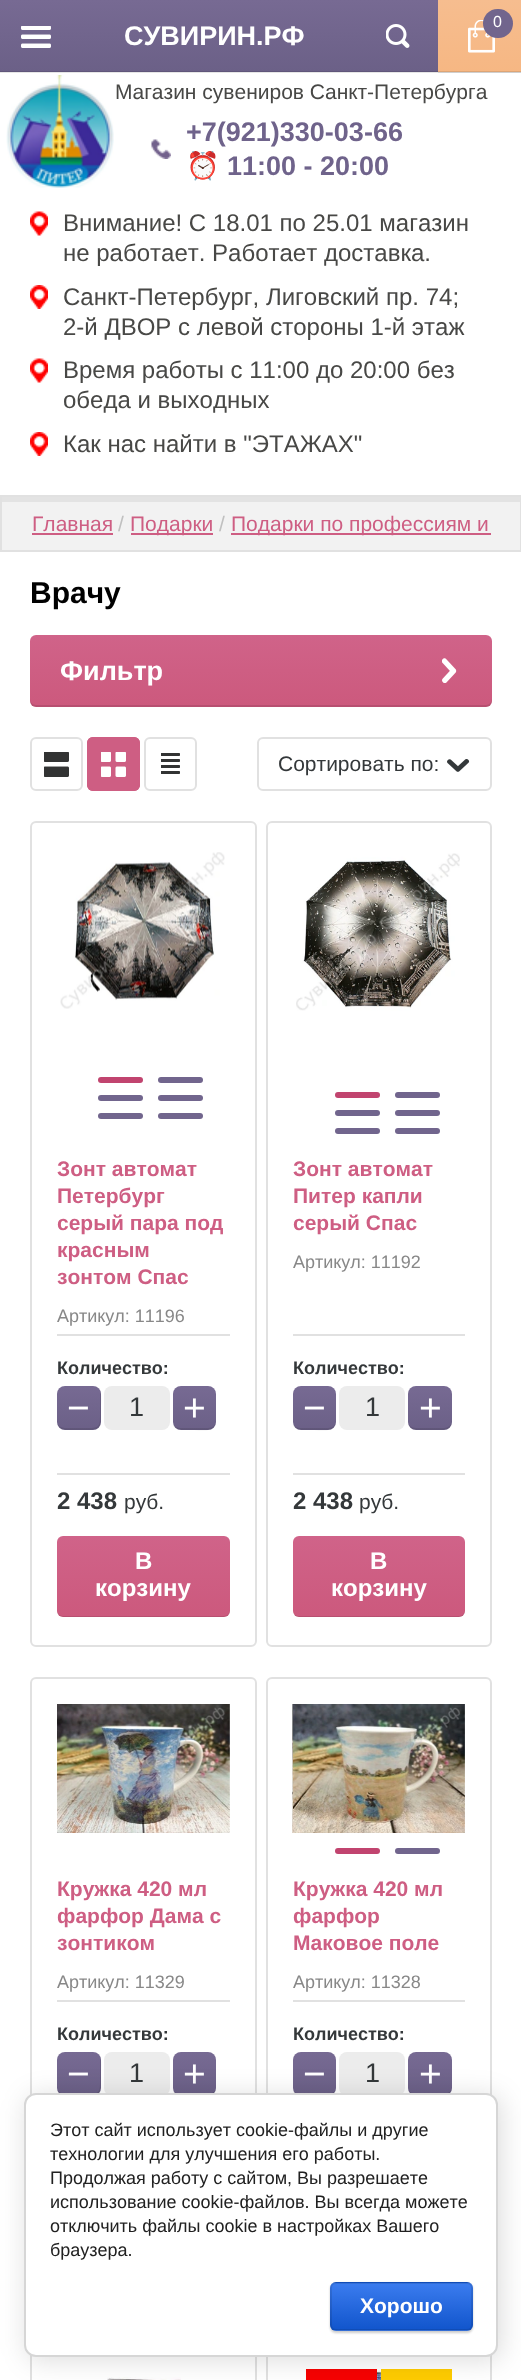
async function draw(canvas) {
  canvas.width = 521;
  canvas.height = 2380;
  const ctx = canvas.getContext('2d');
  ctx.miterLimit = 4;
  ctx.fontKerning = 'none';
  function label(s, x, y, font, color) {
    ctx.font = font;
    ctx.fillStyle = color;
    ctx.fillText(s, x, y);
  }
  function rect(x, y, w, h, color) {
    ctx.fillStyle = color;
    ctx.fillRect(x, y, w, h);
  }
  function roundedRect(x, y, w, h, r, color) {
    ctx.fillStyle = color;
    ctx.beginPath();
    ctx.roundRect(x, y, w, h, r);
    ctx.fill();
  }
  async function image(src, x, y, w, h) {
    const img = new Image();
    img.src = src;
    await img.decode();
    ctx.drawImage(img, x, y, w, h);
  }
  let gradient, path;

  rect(0, 0, 521, 2380, '#fff');
  rect(0, 72, 438, 1, '#e6e6e6');
  rect(438, 72, 83, 1, '#cfcfcf');
  gradient = ctx.createLinearGradient(261, 72, 261, 0);
  gradient.addColorStop(0, '#6b6087');
  gradient.addColorStop(1, '#776a93');
  ctx.fillStyle = gradient;
  ctx.fillRect(0, 0, 438, 71);
  await image('assets/img1.png', 21, 26, 30, 22);
  gradient = ctx.createLinearGradient(261, 72, 261, 0);
  gradient.addColorStop(0, '#60567a');
  gradient.addColorStop(1, '#6b5f84');
  ctx.fillStyle = gradient;
  ctx.fillRect(0, 71, 438, 1);
  gradient = ctx.createLinearGradient(480, 72, 480, 0);
  gradient.addColorStop(0, '#f6b783');
  gradient.addColorStop(1, '#f6bd8f');
  ctx.fillStyle = gradient;
  ctx.fillRect(438, 0, 83, 71);
  gradient = ctx.createLinearGradient(480, 72, 480, 0);
  gradient.addColorStop(0, '#dda576');
  gradient.addColorStop(1, '#ddaa81');
  ctx.fillStyle = gradient;
  ctx.fillRect(438, 71, 83, 1);
  await image('assets/img2.png', 468, 20, 27, 33);
  roundedRect(483, 9, 30, 29, 14.5, '#71658d');
  label('0', 493, 27, '16px Liberation Sans', '#fff');
  label('СУВИРИН.РФ', 124, 45, 'bold 27px Liberation Sans', '#fff');
  await image('assets/img3.png', 386, 24, 24, 24);
  await image('assets/img4.png', 6, 75, 108, 113);
  label('Магазин сувениров Санкт-Петербурга', 115, 99, '21px Liberation Sans', '#484846');
  await image('assets/img5.png', 151, 139, 20, 20);
  label('+7(921)330-03-66', 186, 141, 'bold 27px Liberation Sans', '#6f638b');
  label('⏰', 186, 175, 'bold 27px Noto Color Emoji', '#6f638b');
  label('11:00 - 20:00', 227, 175, 'bold 27px Liberation Sans', '#6f638b');
  await image('assets/img6.png', 30, 211, 18, 25);
  label('Внимание! С 18.01 по 25.01 магазин', 63, 231, '24px Liberation Sans', '#484846');
  label('не работает. Работает', 63, 261, '24px Liberation Sans', '#484846');
  label('доставка.', 324, 261, '24px Liberation Sans', '#484846');
  await image('assets/img7.png', 30, 285, 18, 24);
  label('Санкт-Петербург, Лиговский', 63, 305, '24px Liberation Sans', '#484846');
  label('пр. 74;', 386, 305, '24px Liberation Sans', '#484846');
  label('2-й ДВОР с левой стороны 1-й этаж', 63, 335, '24px Liberation Sans', '#484846');
  await image('assets/img6.png', 30, 358, 18, 25);
  label('Время работы с 11:00 до 20:00 без', 63, 378, '24px Liberation Sans', '#484846');
  label('обеда и выходных', 63, 408, '24px Liberation Sans', '#484846');
  await image('assets/img7.png', 30, 432, 18, 24);
  label('Как нас найти в "ЭТАЖАХ"', 63, 452, '24px Liberation Sans', '#484846');
  rect(2, 502, 518, 48, '#f2f2f2');
  rect(2, 497, 519, 5, '#e3e3e3');
  ctx.strokeStyle = '#e1e1e1';
  ctx.lineWidth = 2;
  ctx.strokeRect(1, 496, 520, 55);
  label('Главная', 32, 531, '21px Liberation Sans', '#ce5e83');
  rect(32, 533, 81, 2, '#ce5e83');
  label('/', 118, 531, '21px Liberation Sans', '#c0c0c0');
  rect(131, 533, 82, 2, '#ce5e83');
  label('Подарки', 130, 531, '21px Liberation Sans', '#ce5e83');
  label('/', 219, 531, '21px Liberation Sans', '#c0c0c0');
  rect(231, 533, 260, 2, '#ce5e83');
  label('Подарки по профессиям и', 231, 531, '21px Liberation Sans', '#ce5e83');
  label('Врачу', 30, 603, 'bold 30px Liberation Sans', '#000');
  gradient = ctx.createLinearGradient(261, 707, 261, 635);
  gradient.addColorStop(0, '#cc597d');
  gradient.addColorStop(1, '#d06389');
  ctx.fillStyle = gradient;
  ctx.beginPath();
  ctx.roundRect(30, 635, 462, 72, 6);
  ctx.fill();
  ctx.fillStyle = '#0000001a';
  path = new Path2D('M30 699C30 703 31 707 36 707H486C491 707 492 703 492 699C492 702 489 705 486 705H36C33 705 30 702 30 699Z');
  ctx.fill(path);
  label('Фильтр', 60, 680, 'bold 27px Liberation Sans', '#fff');
  await image('assets/img8.png', 442, 658, 15, 25);
  await image('assets/img9.png', 44, 752, 25, 25);
  ctx.beginPath();
  ctx.roundRect(31, 738, 51, 52, 5);
  ctx.stroke();
  roundedRect(87, 737, 53, 54, 6, '#ce5e83');
  await image('assets/img10.png', 101, 752, 25, 25);
  ctx.beginPath();
  ctx.roundRect(88, 738, 51, 52, 5);
  ctx.strokeStyle = '#ce5e83';
  ctx.stroke();
  await image('assets/img11.png', 161, 753, 19, 21);
  ctx.beginPath();
  ctx.roundRect(145, 738, 51, 52, 5);
  ctx.strokeStyle = '#e1e1e1';
  ctx.stroke();
  ctx.beginPath();
  ctx.roundRect(258, 738, 233, 52, 5);
  ctx.stroke();
  label('Сортировать по:', 278, 771, '21px Liberation Sans', '#34383a');
  await image('assets/img12.png', 447, 759, 23, 13);
  ctx.beginPath();
  ctx.roundRect(31, 822, 225, 824, 5);
  ctx.stroke();
  await image('assets/img13.png', 60, 852, 165, 157);
  roundedRect(98, 1077, 45, 6, 3, '#c1446f');
  roundedRect(158, 1077, 45, 6, 3, '#71658d');
  roundedRect(98, 1095, 45, 6, 3, '#71658d');
  roundedRect(158, 1095, 45, 6, 3, '#71658d');
  roundedRect(98, 1113, 45, 6, 3, '#71658d');
  roundedRect(158, 1113, 45, 6, 3, '#71658d');
  label('Зонт автомат', 57, 1176, 'bold 21px Liberation Sans', '#ce5e83');
  label('Петербург', 57, 1203, 'bold 21px Liberation Sans', '#ce5e83');
  label('серый пара под', 57, 1230, 'bold 21px Liberation Sans', '#ce5e83');
  label('красным', 57, 1257, 'bold 21px Liberation Sans', '#ce5e83');
  label('зонтом Спас', 57, 1284, 'bold 21px Liberation Sans', '#ce5e83');
  label('Артикул: 11196', 57, 1322, '18px Liberation Sans', '#888');
  rect(57, 1334, 173, 2, '#e1e1e1');
  rect(57, 1473, 173, 2, '#e1e1e1');
  label('Количество:', 57, 1374, 'bold 18px Liberation Sans', '#34383a');
  gradient = ctx.createLinearGradient(79, 1430, 79, 1386);
  gradient.addColorStop(0, '#6b6087');
  gradient.addColorStop(1, '#776a93');
  ctx.fillStyle = gradient;
  ctx.beginPath();
  ctx.roundRect(57, 1386, 44, 44, 8);
  ctx.fill();
  ctx.fillStyle = '#0000001a';
  path = new Path2D('M57 1420C57 1429 62 1430 70 1430H79C102 1430 101 1431 101 1408C101 1404 102 1394 100 1390V1406C100 1430 102 1428 78 1428H69C63 1428 57 1428 57 1420Z');
  ctx.fill(path);
  label('−', 67, 1421, '39px Liberation Sans', '#fff');
  roundedRect(104, 1386, 66, 44, 8, '#ececec');
  label('1', 129, 1416, '27px Liberation Sans', '#34383a');
  gradient = ctx.createLinearGradient(194, 1430, 194, 1386);
  gradient.addColorStop(0, '#6b6087');
  gradient.addColorStop(1, '#776a93');
  ctx.fillStyle = gradient;
  ctx.beginPath();
  ctx.roundRect(173, 1386, 43, 44, 8);
  ctx.fill();
  ctx.fillStyle = '#0000001a';
  path = new Path2D('M173 1425C175 1430 181 1430 186 1430H194C204 1430 216 1433 216 1420C216 1425 213 1428 208 1428H180C178 1428 175 1427 173 1425Z');
  ctx.fill(path);
  label('+', 183, 1421, '39px Liberation Sans', '#fff');
  label('2 438', 57, 1509, 'bold 24px Liberation Sans', '#34383a');
  label('руб.', 124, 1509, '21px Liberation Sans', '#34383a');
  gradient = ctx.createLinearGradient(143, 1617, 143, 1536);
  gradient.addColorStop(0, '#cc597d');
  gradient.addColorStop(1, '#d06389');
  ctx.fillStyle = gradient;
  ctx.beginPath();
  ctx.roundRect(57, 1536, 173, 81, 6);
  ctx.fill();
  ctx.fillStyle = '#0000001a';
  path = new Path2D('M57 1610V1611C57 1614 60 1617 63 1617H224C227 1617 230 1614 230 1611V1610C230 1613 227 1616 224 1616H63C60 1616 57 1613 57 1610Z');
  ctx.fill(path);
  label('В', 135, 1569, 'bold 24px Liberation Sans', '#fff');
  label('корзину', 95, 1596, 'bold 24px Liberation Sans', '#fff');
  ctx.beginPath();
  ctx.roundRect(267, 822, 224, 824, 5);
  ctx.stroke();
  await image('assets/img14.png', 296, 853, 164, 158);
  roundedRect(335, 1092, 45, 6, 3, '#c1446f');
  roundedRect(395, 1092, 45, 6, 3, '#71658d');
  roundedRect(335, 1110, 45, 6, 3, '#71658d');
  roundedRect(395, 1110, 45, 6, 3, '#71658d');
  roundedRect(335, 1128, 45, 6, 3, '#71658d');
  roundedRect(395, 1128, 45, 6, 3, '#71658d');
  label('Зонт автомат', 293, 1176, 'bold 21px Liberation Sans', '#ce5e83');
  label('Питер капли', 293, 1203, 'bold 21px Liberation Sans', '#ce5e83');
  label('серый Спас', 293, 1230, 'bold 21px Liberation Sans', '#ce5e83');
  label('Артикул: 11192', 293, 1268, '18px Liberation Sans', '#888');
  rect(293, 1334, 172, 2, '#e1e1e1');
  rect(293, 1473, 172, 2, '#e1e1e1');
  label('Количество:', 293, 1374, 'bold 18px Liberation Sans', '#34383a');
  gradient = ctx.createLinearGradient(314, 1430, 314, 1386);
  gradient.addColorStop(0, '#6b6087');
  gradient.addColorStop(1, '#776a93');
  ctx.fillStyle = gradient;
  ctx.beginPath();
  ctx.roundRect(293, 1386, 43, 44, 8);
  ctx.fill();
  ctx.fillStyle = '#0000001a';
  path = new Path2D('M293 1425C295 1430 301 1430 306 1430H314C324 1430 336 1433 336 1420C336 1425 333 1428 328 1428H300C298 1428 295 1427 293 1425Z');
  ctx.fill(path);
  label('−', 303, 1421, '39px Liberation Sans', '#fff');
  roundedRect(339, 1386, 66, 44, 8, '#ececec');
  label('1', 365, 1416, '27px Liberation Sans', '#34383a');
  gradient = ctx.createLinearGradient(430, 1430, 430, 1386);
  gradient.addColorStop(0, '#6b6087');
  gradient.addColorStop(1, '#776a93');
  ctx.fillStyle = gradient;
  ctx.beginPath();
  ctx.roundRect(408, 1386, 44, 44, 8);
  ctx.fill();
  ctx.fillStyle = '#0000001a';
  path = new Path2D('M408 1420C408 1429 413 1430 421 1430H439C447 1430 452 1429 452 1420C452 1425 448 1428 444 1428H416C411 1428 408 1425 408 1420Z');
  ctx.fill(path);
  label('+', 419, 1421, '39px Liberation Sans', '#fff');
  label('2 438', 293, 1509, 'bold 24px Liberation Sans', '#34383a');
  label('руб.', 359, 1509, '21px Liberation Sans', '#34383a');
  gradient = ctx.createLinearGradient(379, 1617, 379, 1536);
  gradient.addColorStop(0, '#cc597d');
  gradient.addColorStop(1, '#d06389');
  ctx.fillStyle = gradient;
  ctx.beginPath();
  ctx.roundRect(293, 1536, 172, 81, 6);
  ctx.fill();
  ctx.fillStyle = '#0000001a';
  path = new Path2D('M294 1614C295 1616 296 1617 298 1617H459C463 1617 465 1614 465 1610C465 1613 462 1616 459 1616H298C297 1616 295 1615 294 1614Z');
  ctx.fill(path);
  label('В', 370, 1569, 'bold 24px Liberation Sans', '#fff');
  label('корзину', 331, 1596, 'bold 24px Liberation Sans', '#fff');
  ctx.beginPath();
  ctx.roundRect(31, 1678, 225, 634, 5);
  ctx.stroke();
  await image('assets/img15.png', 57, 1704, 173, 129);
  label('Кружка 420 мл', 57, 1896, 'bold 21px Liberation Sans', '#ce5e83');
  label('фарфор Дама с', 57, 1923, 'bold 21px Liberation Sans', '#ce5e83');
  label('зонтиком', 57, 1950, 'bold 21px Liberation Sans', '#ce5e83');
  label('Артикул: 11329', 57, 1988, '18px Liberation Sans', '#888');
  rect(57, 2000, 173, 2, '#e1e1e1');
  label('Количество:', 57, 2040, 'bold 18px Liberation Sans', '#34383a');
  gradient = ctx.createLinearGradient(79, 2096, 79, 2052);
  gradient.addColorStop(0, '#6b6087');
  gradient.addColorStop(1, '#776a93');
  ctx.fillStyle = gradient;
  ctx.beginPath();
  ctx.roundRect(57, 2052, 44, 44, 8);
  ctx.fill();
  ctx.fillStyle = '#0000001a';
  path = new Path2D('M57 2086C57 2095 62 2096 70 2096H79C102 2096 101 2097 101 2074C101 2070 102 2060 100 2056V2072C100 2096 102 2094 78 2094H69C63 2094 57 2094 57 2086Z');
  ctx.fill(path);
  label('−', 67, 2087, '39px Liberation Sans', '#fff');
  roundedRect(104, 2052, 66, 44, 8, '#ececec');
  label('1', 129, 2082, '27px Liberation Sans', '#34383a');
  gradient = ctx.createLinearGradient(194, 2096, 194, 2052);
  gradient.addColorStop(0, '#6b6087');
  gradient.addColorStop(1, '#776a93');
  ctx.fillStyle = gradient;
  ctx.beginPath();
  ctx.roundRect(173, 2052, 43, 44, 8);
  ctx.fill();
  ctx.fillStyle = '#0000001a';
  path = new Path2D('M173 2091C175 2096 181 2096 186 2096H194C204 2096 216 2099 216 2086C216 2091 213 2094 208 2094H180C178 2094 175 2093 173 2091Z');
  ctx.fill(path);
  label('+', 183, 2087, '39px Liberation Sans', '#fff');
  ctx.beginPath();
  ctx.roundRect(267, 1678, 224, 634, 5);
  ctx.stroke();
  await image('assets/img16.png', 292, 1704, 1, 129);
  await image('assets/img17.png', 293, 1704, 172, 129);
  roundedRect(335, 1848, 45, 6, 3, '#c1446f');
  roundedRect(395, 1848, 45, 6, 3, '#71658d');
  label('Кружка 420 мл', 293, 1896, 'bold 21px Liberation Sans', '#ce5e83');
  label('фарфор', 293, 1923, 'bold 21px Liberation Sans', '#ce5e83');
  label('Маковое поле', 293, 1950, 'bold 21px Liberation Sans', '#ce5e83');
  label('Артикул: 11328', 293, 1988, '18px Liberation Sans', '#888');
  rect(293, 2000, 172, 2, '#e1e1e1');
  label('Количество:', 293, 2040, 'bold 18px Liberation Sans', '#34383a');
  gradient = ctx.createLinearGradient(314, 2096, 314, 2052);
  gradient.addColorStop(0, '#6b6087');
  gradient.addColorStop(1, '#776a93');
  ctx.fillStyle = gradient;
  ctx.beginPath();
  ctx.roundRect(293, 2052, 43, 44, 8);
  ctx.fill();
  ctx.fillStyle = '#0000001a';
  path = new Path2D('M293 2091C295 2096 301 2096 306 2096H314C324 2096 336 2099 336 2086C336 2091 333 2094 328 2094H300C298 2094 295 2093 293 2091Z');
  ctx.fill(path);
  label('−', 303, 2087, '39px Liberation Sans', '#fff');
  roundedRect(339, 2052, 66, 44, 8, '#ececec');
  label('1', 365, 2082, '27px Liberation Sans', '#34383a');
  gradient = ctx.createLinearGradient(430, 2096, 430, 2052);
  gradient.addColorStop(0, '#6b6087');
  gradient.addColorStop(1, '#776a93');
  ctx.fillStyle = gradient;
  ctx.beginPath();
  ctx.roundRect(408, 2052, 44, 44, 8);
  ctx.fill();
  ctx.fillStyle = '#0000001a';
  path = new Path2D('M408 2086C408 2095 413 2096 421 2096H439C447 2096 452 2095 452 2086C452 2091 448 2094 444 2094H416C411 2094 408 2091 408 2086Z');
  ctx.fill(path);
  label('+', 419, 2087, '39px Liberation Sans', '#fff');
  ctx.strokeRect(31, 2344, 225, 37);
  await image('assets/img18.png', 107, 2377, 74, 3);
  ctx.strokeRect(267, 2344, 224, 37);
  rect(306, 2369, 71, 11, '#f70202');
  rect(381, 2369, 71, 11, '#fc0');
  await image('assets/img19.png', 377, 2370, 4, 10);
  ctx.fillStyle = '#00000024';
  ctx.filter = 'blur(13.5px)';
  ctx.beginPath();
  ctx.roundRect(27, 2096, 474, 264, 12);
  ctx.fill();
  ctx.filter = 'none';
  ctx.fillStyle = '#fff';
  ctx.beginPath();
  ctx.roundRect(25, 2094, 472, 262, 11);
  ctx.fill();
  ctx.strokeStyle = '#d6d6d6';
  ctx.stroke();
  label('Этот сайт использует cookie-файлы и другие', 50, 2136, '18px Liberation Sans', '#212121');
  label('технологии для улучшения его работы.', 50, 2160, '18px Liberation Sans', '#212121');
  label('Продолжая работу с сайтом, Вы разрешаете', 50, 2184, '18px Liberation Sans', '#212121');
  label('использование cookie-файлов. Вы всегда можете', 50, 2208, '18px Liberation Sans', '#212121');
  label('отключить файлы cookie в настройках Вашего', 50, 2232, '18px Liberation Sans', '#212121');
  label('браузера.', 50, 2256, '18px Liberation Sans', '#212121');
  ctx.fillStyle = '#00000033';
  ctx.filter = 'blur(1px)';
  ctx.beginPath();
  ctx.roundRect(330, 2283, 143, 50, 6);
  ctx.fill();
  ctx.filter = 'none';
  ctx.save();
  ctx.beginPath();
  ctx.roundRect(330, 2282, 143, 49, 6);
  ctx.clip();
  gradient = ctx.createLinearGradient(401, 2237, 401, 2283);
  gradient.addColorStop(0, '#3b7cef');
  gradient.addColorStop(1, '#15c');
  ctx.fillStyle = gradient;
  ctx.fillRect(330, 2282, 143, 1);
  gradient = ctx.createLinearGradient(401, 2283, 401, 2330);
  gradient.addColorStop(0, '#3b7cef');
  gradient.addColorStop(1, '#15c');
  ctx.fillStyle = gradient;
  ctx.fillRect(330, 2283, 143, 47);
  gradient = ctx.createLinearGradient(401, 2330, 401, 2376);
  gradient.addColorStop(0, '#3b7cef');
  gradient.addColorStop(1, '#15c');
  ctx.fillStyle = gradient;
  ctx.fillRect(330, 2330, 143, 1);
  ctx.restore();
  ctx.beginPath();
  ctx.roundRect(331, 2283, 141, 47, 5);
  ctx.strokeStyle = '#0000001a';
  ctx.stroke();
  label('Хорошо', 360, 2313, 'bold 21px Liberation Sans', '#fff');
}

draw(document.querySelector('canvas'));
